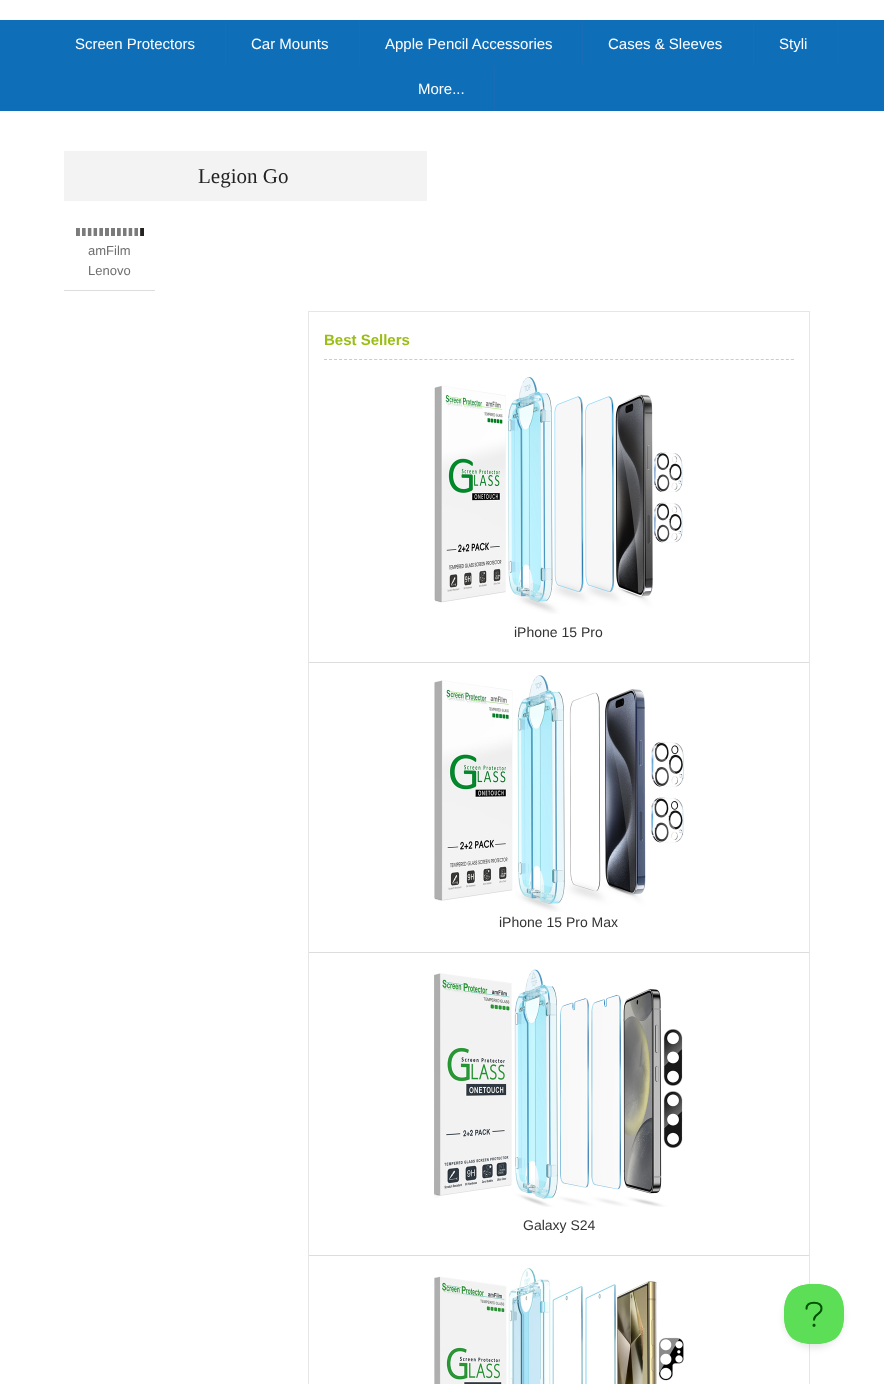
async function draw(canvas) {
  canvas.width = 884;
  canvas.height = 1384;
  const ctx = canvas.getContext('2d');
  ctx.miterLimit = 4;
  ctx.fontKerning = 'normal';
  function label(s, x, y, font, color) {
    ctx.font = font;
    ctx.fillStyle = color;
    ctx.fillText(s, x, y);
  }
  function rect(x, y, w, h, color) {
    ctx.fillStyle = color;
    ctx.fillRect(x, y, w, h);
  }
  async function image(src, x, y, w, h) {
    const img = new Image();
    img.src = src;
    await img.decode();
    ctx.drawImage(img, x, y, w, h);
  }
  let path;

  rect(0, 0, 884, 1384, '#fff');
  rect(0, 20, 884, 91, '#0e6eb8');
  rect(225, 21, 1, 45, '#196db6');
  label('Screen Protectors', 75, 49, '15px Liberation Sans', '#fff');
  rect(359, 21, 1, 45, '#196db6');
  label('Car Mounts', 251, 49, '15px Liberation Sans', '#fff');
  rect(582, 21, 1, 45, '#196db6');
  label('Apple Pencil Accessories', 385, 49, '15px Liberation Sans', '#fff');
  rect(753, 21, 1, 45, '#196db6');
  label('Cases & Sleeves', 608, 49, '15px Liberation Sans', '#fff');
  rect(837, 21, 1, 45, '#196db6');
  label('Styli', 779, 49, '15px Liberation Sans', '#fff');
  rect(494, 66, 1, 45, '#196db6');
  label('More...', 418, 94, '15px Liberation Sans', '#fff');
  rect(64, 151, 363, 50, '#f3f3f3');
  label('Legion Go', 198, 183, '21px Liberation Serif', '#222');
  await image('assets/img1.png', 76, 228, 68, 8);
  rect(64, 290, 91, 1, '#ddd');
  label('amFilm', 88, 255, '13px Liberation Sans', '#6f6f6f');
  label('Lenovo', 88, 275, '13px Liberation Sans', '#6f6f6f');
  ctx.strokeStyle = '#e6e6e6';
  ctx.strokeRect(308.5, 311.5, 501, 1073);
  path = new Path2D('M324 359.5H794');
  ctx.strokeStyle = '#ccc';
  ctx.setLineDash([3, 2.02]);
  ctx.stroke(path);
  label('Best Sellers', 324, 345, 'bold 15px Liberation Sans', '#9abe14');
  await image('assets/img2.png', 434, 377, 249, 237);
  rect(309, 662, 500, 1, '#ddd');
  label('iPhone 15 Pro', 514, 637, '14px Liberation Sans', '#333');
  await image('assets/img3.png', 434, 675, 250, 237);
  rect(309, 952, 500, 1, '#ddd');
  label('iPhone 15 Pro Max', 499, 927, '14px Liberation Sans', '#333');
  await image('assets/img4.png', 434, 969, 249, 238);
  rect(309, 1255, 500, 1, '#ddd');
  label('Galaxy S24', 523, 1230, '14px Liberation Sans', '#333');
  await image('assets/img5.png', 434, 1268, 250, 116);
  ctx.fillStyle = '#0000001a';
  ctx.filter = 'blur(3.5px)';
  ctx.beginPath();
  ctx.roundRect(784, 1288, 60, 60, 30);
  ctx.fill();
  ctx.filter = 'none';
  await image('assets/img6.png', 784, 1284, 60, 60);
}

draw(document.querySelector('canvas'));
